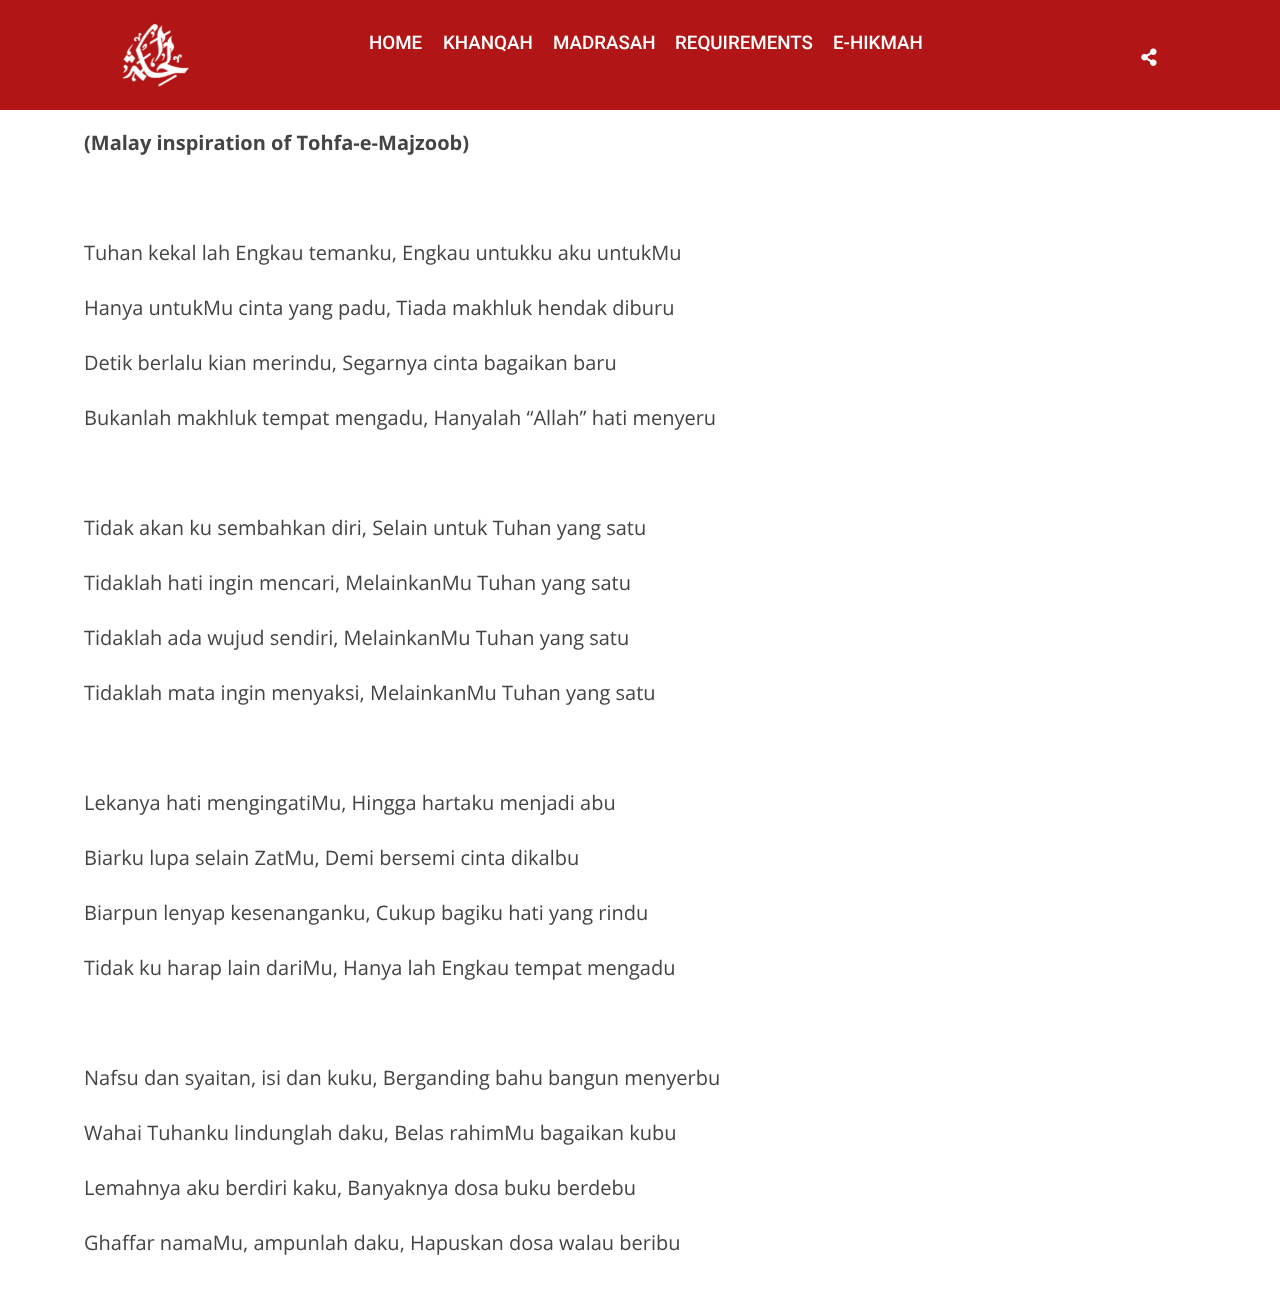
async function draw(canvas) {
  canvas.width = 1280;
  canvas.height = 1313;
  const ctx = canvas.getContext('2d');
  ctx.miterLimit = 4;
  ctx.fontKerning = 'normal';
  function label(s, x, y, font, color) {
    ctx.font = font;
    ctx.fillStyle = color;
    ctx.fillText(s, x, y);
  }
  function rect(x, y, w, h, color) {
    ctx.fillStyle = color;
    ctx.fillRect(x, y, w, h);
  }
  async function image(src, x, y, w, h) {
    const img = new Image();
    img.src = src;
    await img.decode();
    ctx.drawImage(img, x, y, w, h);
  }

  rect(0, 0, 1280, 1313, '#fff');
  rect(0, 0, 1280, 110, '#b21515');
  await image('assets/img1.png', 122, 23, 67, 64);
  label('HOME', 369, 49, '500 18.75px Roboto', '#fff');
  label('KHANQAH', 443, 49, '500 18.75px Roboto', '#fff');
  label('MADRASAH', 553, 49, '500 18.75px Roboto', '#fff');
  label('REQUIREMENTS', 675, 49, '500 18.75px Roboto', '#fff');
  label('E-HIKMAH', 833, 49, '500 18.75px Roboto', '#fff');
  await image('assets/img2.png', 1141, 48, 16, 18);
  label('(Malay inspiration of Tohfa-e-Majzoob)', 84, 150, 'bold 20px Open Sans', '#444');
  label('Tuhan kekal lah Engkau temanku, Engkau untukku aku untukMu', 84, 260, '20px Open Sans', '#444');
  label('Hanya untukMu cinta yang padu, Tiada makhluk hendak diburu', 84, 315, '20px Open Sans', '#444');
  label('Detik berlalu kian merindu, Segarnya cinta bagaikan baru', 84, 370, '20px Open Sans', '#444');
  label('Bukanlah makhluk tempat mengadu, Hanyalah “Allah” hati menyeru', 84, 425, '20px Open Sans', '#444');
  label('Tidak akan ku sembahkan diri, Selain untuk Tuhan yang satu', 84, 535, '20px Open Sans', '#444');
  label('Tidaklah hati ingin mencari, MelainkanMu Tuhan yang satu', 84, 590, '20px Open Sans', '#444');
  label('Tidaklah ada wujud sendiri, MelainkanMu Tuhan yang satu', 84, 645, '20px Open Sans', '#444');
  label('Tidaklah mata ingin menyaksi, MelainkanMu Tuhan yang satu', 84, 700, '20px Open Sans', '#444');
  label('Lekanya hati mengingatiMu, Hingga hartaku menjadi abu', 84, 810, '20px Open Sans', '#444');
  label('Biarku lupa selain ZatMu, Demi bersemi cinta dikalbu', 84, 865, '20px Open Sans', '#444');
  label('Biarpun lenyap kesenanganku, Cukup bagiku hati yang rindu', 84, 920, '20px Open Sans', '#444');
  label('Tidak ku harap lain dariMu, Hanya lah Engkau tempat mengadu', 84, 975, '20px Open Sans', '#444');
  label('Nafsu dan syaitan, isi dan kuku, Berganding bahu bangun menyerbu', 84, 1085, '20px Open Sans', '#444');
  label('Wahai Tuhanku lindunglah daku, Belas rahimMu bagaikan kubu', 84, 1140, '20px Open Sans', '#444');
  label('Lemahnya aku berdiri kaku, Banyaknya dosa buku berdebu', 84, 1195, '20px Open Sans', '#444');
  label('Ghaffar namaMu, ampunlah daku, Hapuskan dosa walau beribu', 84, 1250, '20px Open Sans', '#444');
}

draw(document.querySelector('canvas'));
